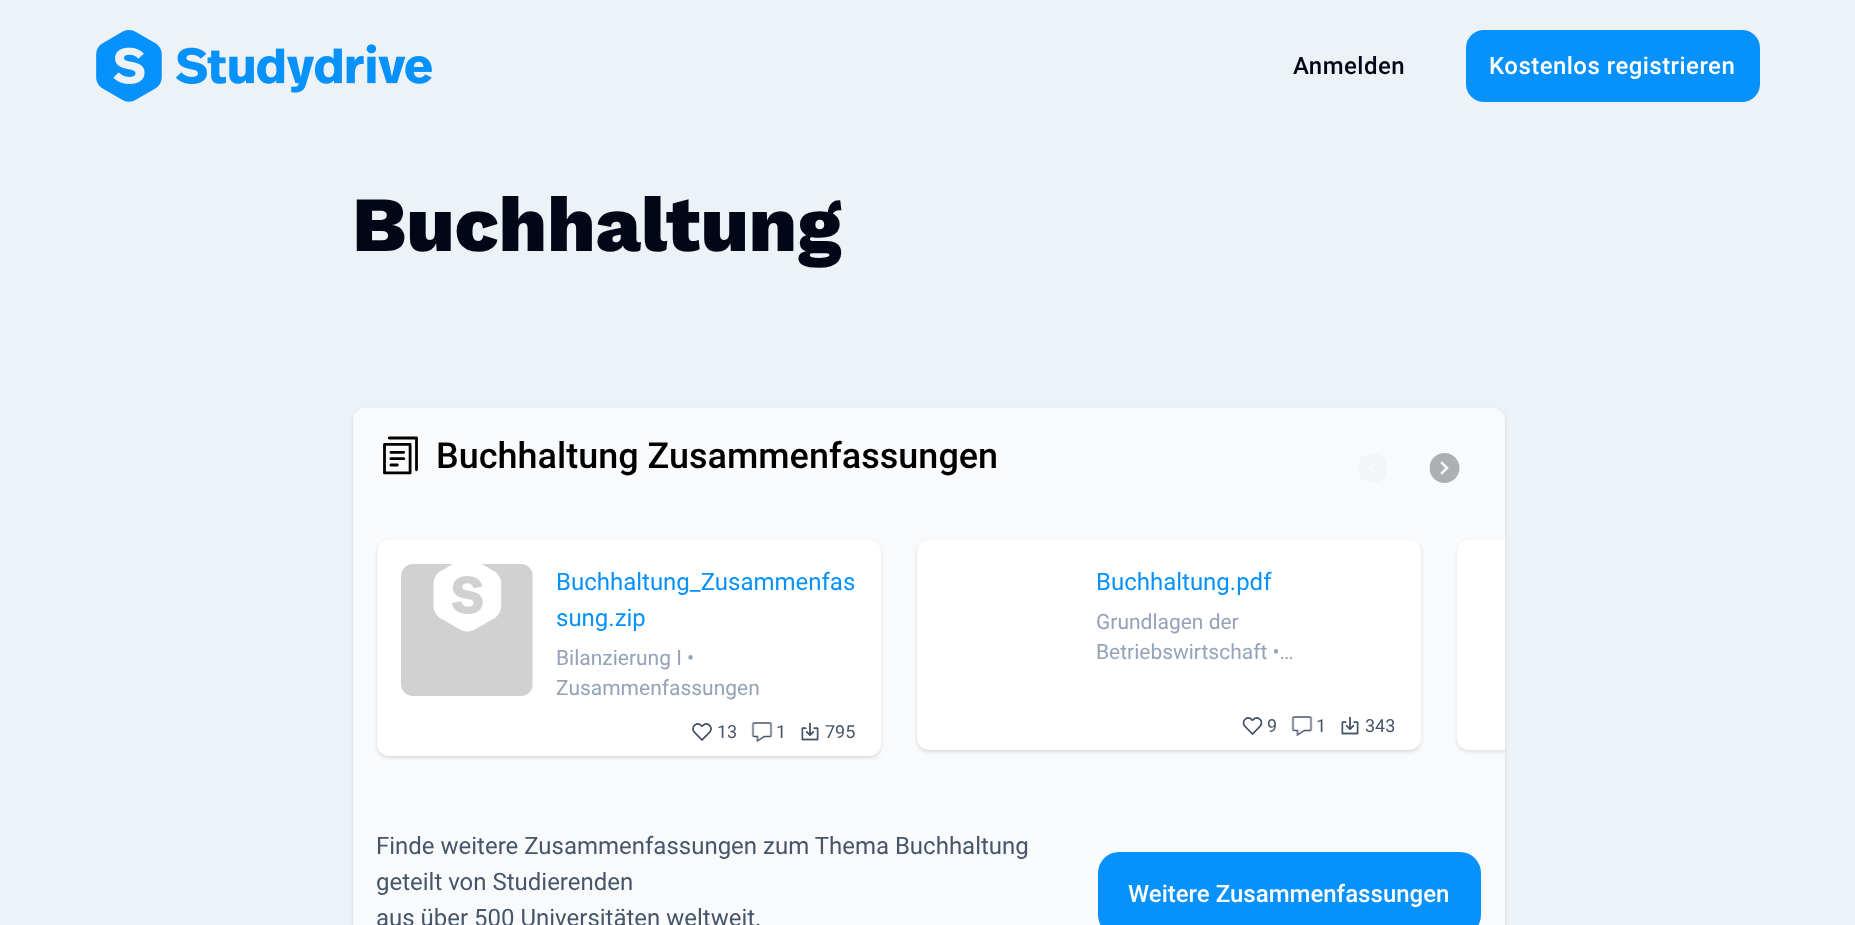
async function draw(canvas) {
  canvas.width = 1855;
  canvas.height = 925;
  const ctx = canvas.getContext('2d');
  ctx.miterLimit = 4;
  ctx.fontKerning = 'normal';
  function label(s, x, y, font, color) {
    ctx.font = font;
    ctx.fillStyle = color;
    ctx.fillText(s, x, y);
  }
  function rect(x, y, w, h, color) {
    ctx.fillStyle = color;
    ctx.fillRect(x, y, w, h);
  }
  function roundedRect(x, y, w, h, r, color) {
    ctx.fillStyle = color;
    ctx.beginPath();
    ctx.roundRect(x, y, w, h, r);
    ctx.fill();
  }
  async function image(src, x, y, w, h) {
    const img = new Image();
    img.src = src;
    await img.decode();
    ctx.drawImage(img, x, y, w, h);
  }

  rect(0, 0, 1855, 925, '#edf2f7');
  await image('assets/img1.png', 96, 30, 336, 72);
  ctx.letterSpacing = '0.45px';
  label('Anmelden', 1293, 74, '500 24px Roboto', '#020617');
  roundedRect(1466, 30, 294, 72, 18, '#0691fb');
  label('Kostenlos registrieren', 1489, 74, '500 24px Roboto', '#fff');
  ctx.letterSpacing = '0px';
  label('Buchhaltung', 352, 251, '800 78px Work Sans', '#020617');
  ctx.fillStyle = '#0000001a';
  ctx.filter = 'blur(2px)';
  ctx.beginPath();
  ctx.roundRect(353, 410, 1152, 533, 12);
  ctx.fill();
  ctx.filter = 'none';
  roundedRect(353, 408, 1152, 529, 12, '#f8fafc');
  await image('assets/img2.png', 383, 436, 35, 39);
  label('Buchhaltung Zusammenfassungen', 436, 468, '500 36px Roboto', '#000');
  await image('assets/img3.png', 1358, 453, 29, 30);
  await image('assets/img4.png', 1429, 453, 31, 30);
  ctx.fillStyle = '#0000001a';
  ctx.filter = 'blur(1.5px)';
  ctx.beginPath();
  ctx.roundRect(378, 543, 501, 213, 11);
  ctx.fill();
  ctx.filter = 'none';
  ctx.filter = 'blur(2px)';
  ctx.beginPath();
  ctx.roundRect(377, 542, 504, 216, 12);
  ctx.fill();
  ctx.filter = 'none';
  roundedRect(377, 540, 504, 216, 12, '#fff');
  roundedRect(401, 564, 132, 132, 12, '#f8fafc');
  await image('assets/img5.png', 401, 564, 132, 132);
  label('Buchhaltung_Zusammenfas', 556, 590, '24px Roboto', '#0691fb');
  label('sung.zip', 556, 626, '24px Roboto', '#0691fb');
  label('Bilanzierung I •', 556, 665, '21px Roboto', '#94a3b8');
  ctx.save();
  ctx.beginPath();
  ctx.rect(557, 642, 300, 60);
  ctx.clip();
  label('Zusammenfassungen', 556, 695, '21px Roboto', '#94a3b8');
  ctx.restore();
  await image('assets/img6.png', 692, 723, 20, 18);
  label('13', 717, 738, '18px Roboto', '#475569');
  await image('assets/img7.png', 751, 722, 22, 21);
  label('1', 776, 738, '18px Roboto', '#475569');
  await image('assets/img8.png', 801, 722, 18, 19);
  label('795', 825, 738, '18px Roboto', '#475569');
  ctx.fillStyle = '#0000001a';
  ctx.filter = 'blur(1.5px)';
  ctx.beginPath();
  ctx.roundRect(918, 543, 501, 207, 11);
  ctx.fill();
  ctx.filter = 'none';
  ctx.filter = 'blur(2px)';
  ctx.beginPath();
  ctx.roundRect(917, 542, 504, 210, 12);
  ctx.fill();
  ctx.filter = 'none';
  roundedRect(917, 540, 504, 210, 12, '#fff');
  label('Buchhaltung.pdf', 1096, 590, '24px Roboto', '#0691fb');
  label('Grundlagen der', 1096, 629, '21px Roboto', '#94a3b8');
  label('Betriebswirtschaft •…', 1096, 659, '21px Roboto', '#94a3b8');
  await image('assets/img9.png', 1242, 717, 21, 18);
  label('9', 1267, 732, '18px Roboto', '#475569');
  await image('assets/img7.png', 1291, 716, 22, 21);
  label('1', 1316, 732, '18px Roboto', '#475569');
  await image('assets/img8.png', 1341, 716, 18, 19);
  label('343', 1365, 732, '18px Roboto', '#475569');
  ctx.save();
  ctx.beginPath();
  ctx.rect(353, 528, 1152, 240);
  ctx.clip();
  ctx.fillStyle = '#0000001a';
  ctx.filter = 'blur(2px)';
  ctx.beginPath();
  ctx.roundRect(1457, 542, 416, 210, 12);
  ctx.fill();
  ctx.filter = 'none';
  ctx.restore();
  ctx.fillStyle = '#fff';
  ctx.beginPath();
  ctx.roundRect(1457, 540, 48, 210, [12, 0, 0, 12]);
  ctx.fill();
  label('Finde weitere Zusammenfassungen zum Thema Buchhaltung', 376, 854, '24px Roboto', '#475569');
  label('geteilt von Studierenden', 376, 890, '24px Roboto', '#475569');
  label('aus über 500 Universitäten weltweit.', 376, 926, '24px Roboto', '#475569');
  roundedRect(1098, 852, 383, 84, 21, '#0691fb');
  label('Weitere Zusammenfassungen', 1128, 902, '500 24px Roboto', '#fff');
}

draw(document.querySelector('canvas'));
